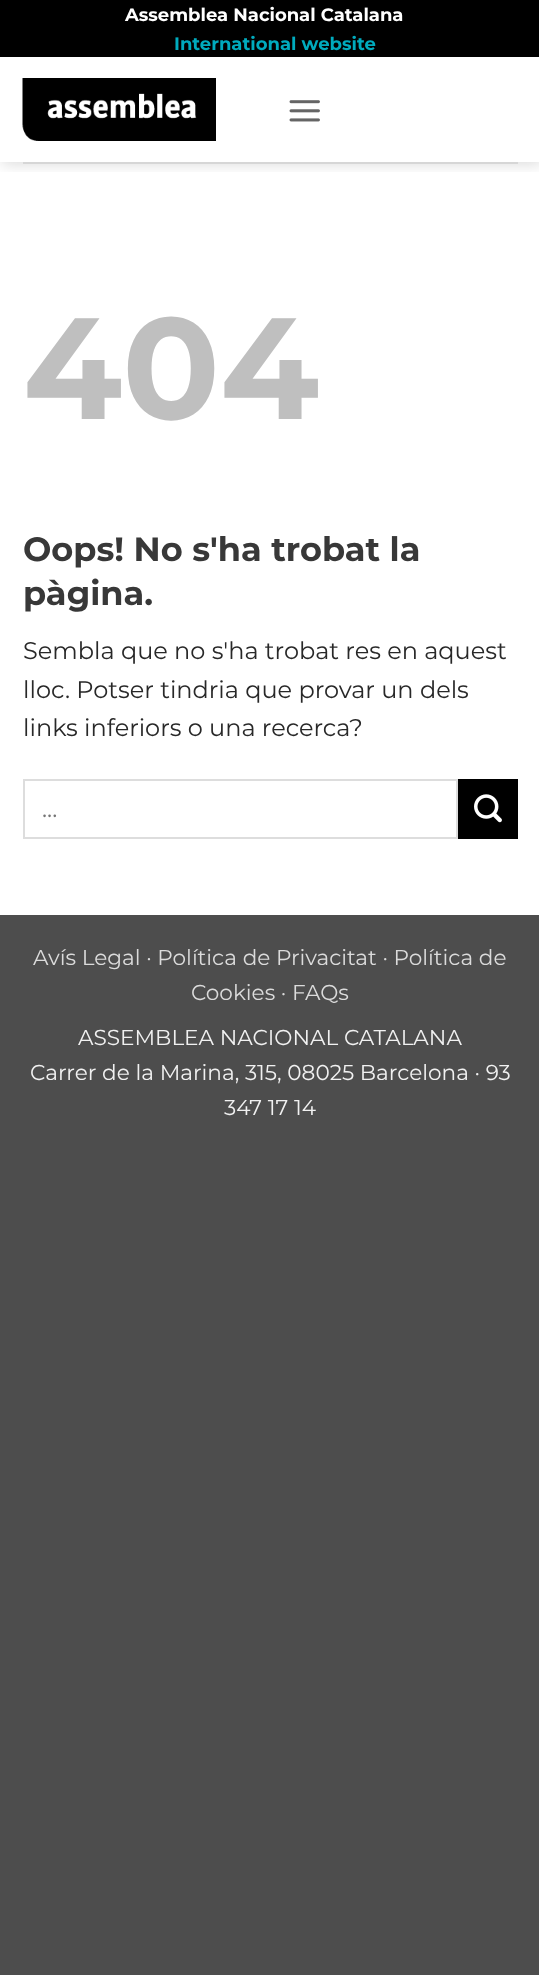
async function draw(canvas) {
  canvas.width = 539;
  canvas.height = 1975;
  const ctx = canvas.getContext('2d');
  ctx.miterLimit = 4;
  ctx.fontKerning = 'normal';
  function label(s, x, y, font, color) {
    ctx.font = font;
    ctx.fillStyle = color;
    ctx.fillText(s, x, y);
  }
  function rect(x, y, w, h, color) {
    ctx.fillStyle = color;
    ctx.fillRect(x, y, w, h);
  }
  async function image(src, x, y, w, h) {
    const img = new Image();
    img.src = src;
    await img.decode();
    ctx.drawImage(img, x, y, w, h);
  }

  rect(0, 0, 539, 1975, '#4d4d4d');
  rect(0, 57, 539, 858, '#fff');
  ctx.save();
  ctx.beginPath();
  ctx.rect(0, 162, 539, 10);
  ctx.clip();
  ctx.fillStyle = '#00000026';
  ctx.filter = 'blur(7.5px)';
  ctx.beginPath();
  ctx.rect(2, 2, 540, 162);
  ctx.fill();
  ctx.filter = 'none';
  ctx.restore();
  rect(0, 0, 539, 57, '#000');
  label('Assemblea Nacional Catalana', 125, 21, 'bold 18px Montserrat', '#fff');
  label('International website', 174, 50, 'bold 18px Montserrat', '#00abbe');
  await image('assets/img1.png', 22, 78, 194, 63);
  await image('assets/img2.png', 289, 100, 31, 22);
  rect(23, 162, 495, 2, '#d6d6d6');
  label('404', 23, 419, 'bold 144px Montserrat', '#bfbfbf');
  label('Oops! No s\'ha trobat la', 23, 561, 'bold 33.6px Montserrat', '#383838');
  label('pàgina.', 23, 605, 'bold 33.6px Montserrat', '#383838');
  label('Sembla que no s\'ha trobat res en aquest', 23, 659, '24px Montserrat', '#282828');
  label('lloc. Potser tindria que provar un dels', 23, 698, '24px Montserrat', '#282828');
  label('links inferiors o una recerca?', 23, 736, '24px Montserrat', '#282828');
  ctx.strokeStyle = '#ddd';
  ctx.lineWidth = 2;
  ctx.strokeRect(24, 780, 433, 58);
  label('...', 42, 817, '24px Montserrat', '#757575');
  rect(458, 779, 60, 60, '#000');
  await image('assets/img3.png', 474, 794, 28, 29);
  label('Avís Legal · Política de Privacitat · Política de', 33, 965, '21.6px Montserrat', '#dbdbdb');
  label('Cookies · FAQs', 191, 1000, '21.6px Montserrat', '#dbdbdb');
  label('ASSEMBLEA NACIONAL CATALANA', 78, 1045, '21.6px Montserrat', '#f1f1f1');
  label('Carrer de la Marina, 315, 08025 Barcelona · 93', 30, 1080, '21.6px Montserrat', '#f1f1f1');
  label('347 17 14', 224, 1115, '21.6px Montserrat', '#f1f1f1');
}

draw(document.querySelector('canvas'));
